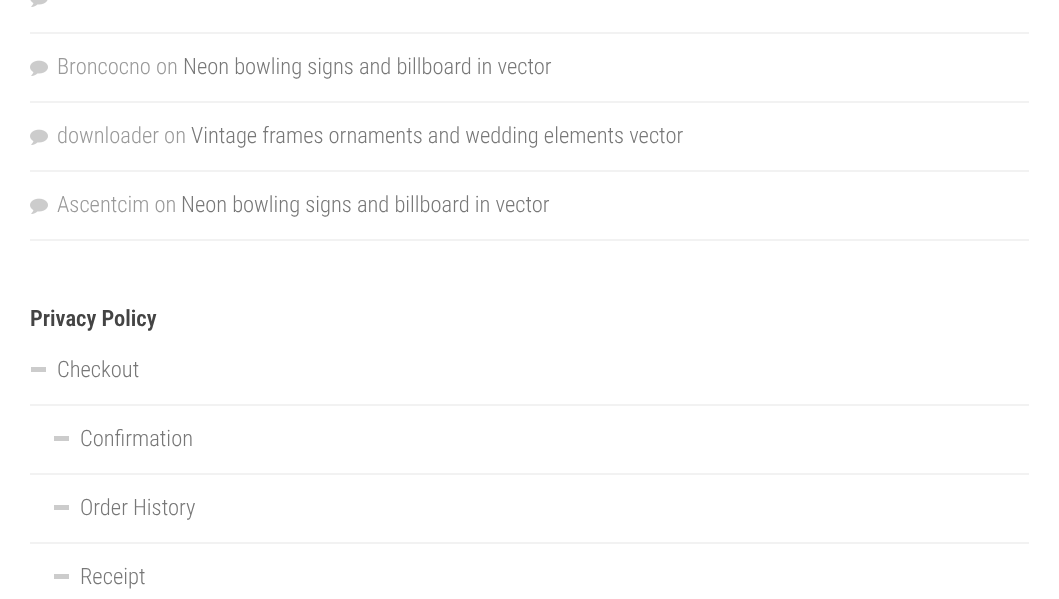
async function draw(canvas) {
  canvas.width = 1059;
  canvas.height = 599;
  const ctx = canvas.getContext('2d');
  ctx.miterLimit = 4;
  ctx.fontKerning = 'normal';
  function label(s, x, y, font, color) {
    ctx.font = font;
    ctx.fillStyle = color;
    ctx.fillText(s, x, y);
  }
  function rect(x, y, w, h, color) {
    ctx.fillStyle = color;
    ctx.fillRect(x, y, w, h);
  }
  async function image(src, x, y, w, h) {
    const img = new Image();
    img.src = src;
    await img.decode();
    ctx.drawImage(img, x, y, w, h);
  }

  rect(0, 0, 1059, 599, '#fff');
  rect(30, 32, 999, 2, '#f2f2f2');
  await image('assets/img1.png', 30, 0, 18, 7);
  rect(30, 101, 999, 2, '#f2f2f2');
  await image('assets/img2.png', 30, 60, 18, 16);
  label('Broncocno on', 57, 74, '300 22.5px Roboto Condensed', '#999');
  label('Neon bowling signs and billboard in vector', 183, 74, '300 22.5px Roboto Condensed', '#777');
  rect(30, 170, 999, 2, '#f2f2f2');
  await image('assets/img2.png', 30, 129, 18, 16);
  label('downloader on', 57, 143, '300 22.5px Roboto Condensed', '#999');
  label('Vintage frames ornaments and wedding elements vector', 191, 143, '300 22.5px Roboto Condensed', '#777');
  rect(30, 239, 999, 2, '#f2f2f2');
  await image('assets/img2.png', 30, 198, 18, 16);
  label('Ascentcim on', 57, 212, '300 22.5px Roboto Condensed', '#999');
  label('Neon bowling signs and billboard in vector', 181, 212, '300 22.5px Roboto Condensed', '#777');
  label('Privacy Policy', 30, 326, '600 22.5px Roboto Condensed', '#444');
  rect(30, 404, 999, 2, '#f2f2f2');
  rect(31, 367, 15, 5, '#ccc');
  label('Checkout', 57, 377, '300 22.5px Roboto Condensed', '#777');
  rect(30, 473, 999, 2, '#f2f2f2');
  rect(54, 436, 15, 5, '#ccc');
  label('Confirmation', 80, 446, '300 22.5px Roboto Condensed', '#777');
  rect(30, 542, 999, 2, '#f2f2f2');
  rect(54, 505, 15, 5, '#ccc');
  label('Order History', 80, 515, '300 22.5px Roboto Condensed', '#777');
  rect(54, 574, 15, 5, '#ccc');
  label('Receipt', 80, 584, '300 22.5px Roboto Condensed', '#777');
}

draw(document.querySelector('canvas'));
